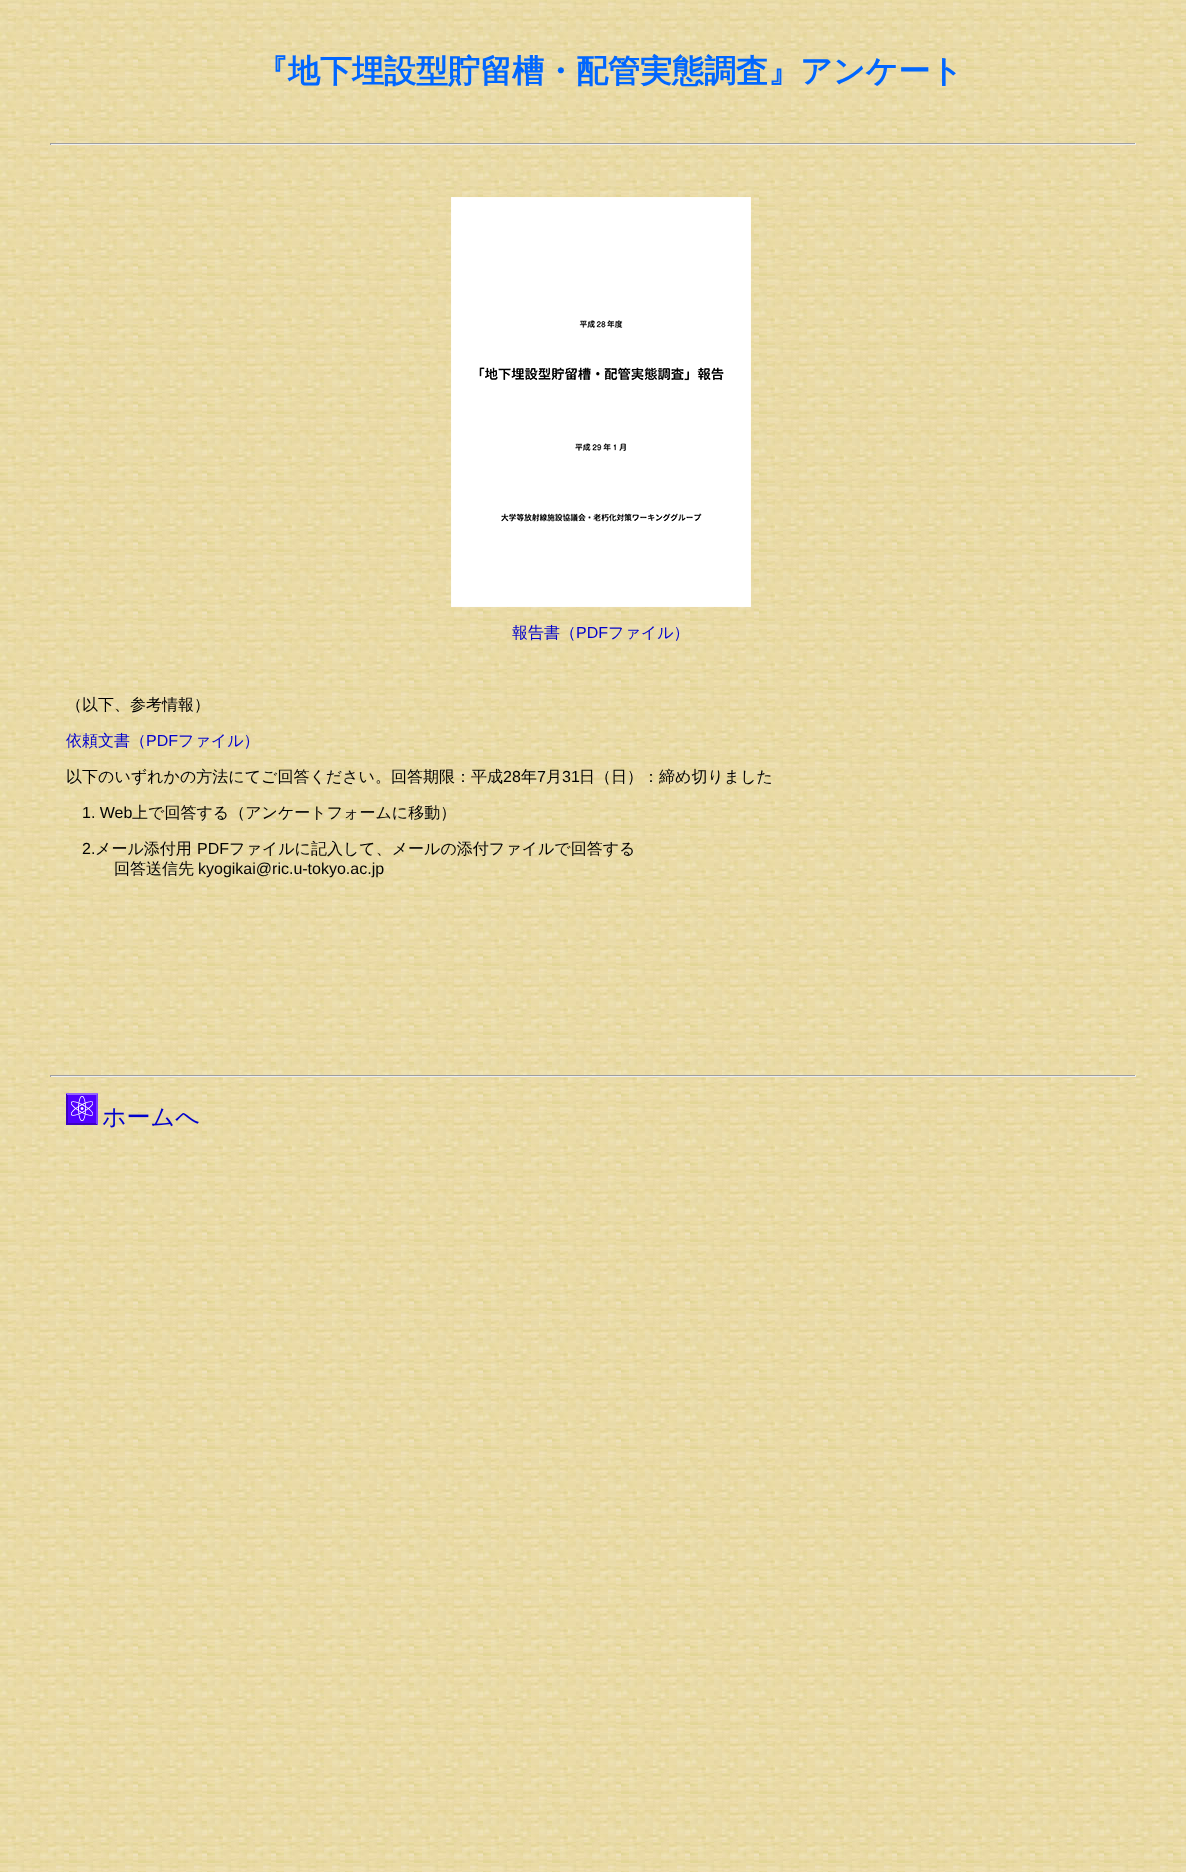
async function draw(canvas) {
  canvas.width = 1186;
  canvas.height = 1872;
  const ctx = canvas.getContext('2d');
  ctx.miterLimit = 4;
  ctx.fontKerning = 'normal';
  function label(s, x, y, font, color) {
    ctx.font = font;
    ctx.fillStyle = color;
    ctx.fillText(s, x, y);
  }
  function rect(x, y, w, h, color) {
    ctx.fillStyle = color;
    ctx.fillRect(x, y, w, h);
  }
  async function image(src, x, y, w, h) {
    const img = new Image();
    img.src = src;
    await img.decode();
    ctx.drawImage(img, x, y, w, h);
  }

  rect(0, 0, 1186, 1872, '#fff');
  await image('assets/img1.png', 0, 0, 1186, 1872);
  label('『地下埋設型貯留槽・配管実態調査』アンケート', 256, 82, 'bold 32px WenQuanYi Zen Hei', '#06f');
  rect(50, 143, 1086, 1, '#9f9f9f');
  rect(1135, 143, 1, 2, '#eee');
  rect(50, 144, 1086, 1, '#eee');
  rect(50, 143, 1, 2, '#9f9f9f');
  await image('assets/img2.png', 451, 197, 300, 410);
  label('報告書（', 512, 638, '500 16px WenQuanYi Zen Hei', '#00c');
  label('PDF', 576, 638, '16px Liberation Sans', '#00c');
  label('ファイル）', 608, 638, '500 16px WenQuanYi Zen Hei', '#00c');
  label('（以下、参考情報）', 66, 710, '500 16px WenQuanYi Zen Hei', '#000');
  label('依頼文書（', 66, 746, '500 16px WenQuanYi Zen Hei', '#00c');
  label('PDF', 146, 746, '16px Liberation Sans', '#00c');
  label('ファイル）', 178, 746, '500 16px WenQuanYi Zen Hei', '#00c');
  label('以下のいずれかの方法にてご回答ください。回答期限：平成', 66, 782, '500 16px WenQuanYi Zen Hei', '#000');
  label('28', 503, 782, '16px Liberation Sans', '#000');
  label('年', 521, 782, '500 16px WenQuanYi Zen Hei', '#000');
  label('7', 537, 782, '16px Liberation Sans', '#000');
  label('月', 546, 782, '500 16px WenQuanYi Zen Hei', '#000');
  label('31', 562, 782, '16px Liberation Sans', '#000');
  label('日（日）：締め切りました', 579, 782, '500 16px WenQuanYi Zen Hei', '#000');
  label('1. Web', 82, 818, '16px Liberation Sans', '#000');
  label('上で回答する（アンケートフォームに移動）', 132, 818, '500 16px WenQuanYi Zen Hei', '#000');
  label('2.', 82, 854, '16px Liberation Sans', '#000');
  label('メール添付用', 95, 854, '500 16px WenQuanYi Zen Hei', '#000');
  label('PDF', 197, 854, '16px Liberation Sans', '#000');
  label('ファイルに記入して、メールの添付ファイルで回答する', 229, 854, '500 16px WenQuanYi Zen Hei', '#000');
  label('回答送信先', 114, 874, '500 16px WenQuanYi Zen Hei', '#000');
  label('kyogikai@ric.u-tokyo.ac.jp', 198, 874, '16px Liberation Sans', '#000');
  rect(50, 1075, 1086, 1, '#9f9f9f');
  rect(1135, 1075, 1, 2, '#eee');
  rect(50, 1076, 1086, 1, '#eee');
  rect(50, 1075, 1, 2, '#9f9f9f');
  await image('assets/img3.png', 66, 1093, 32, 32);
  label('ホームへ', 102, 1125, '500 24px WenQuanYi Zen Hei', '#00c');
}

draw(document.querySelector('canvas'));
